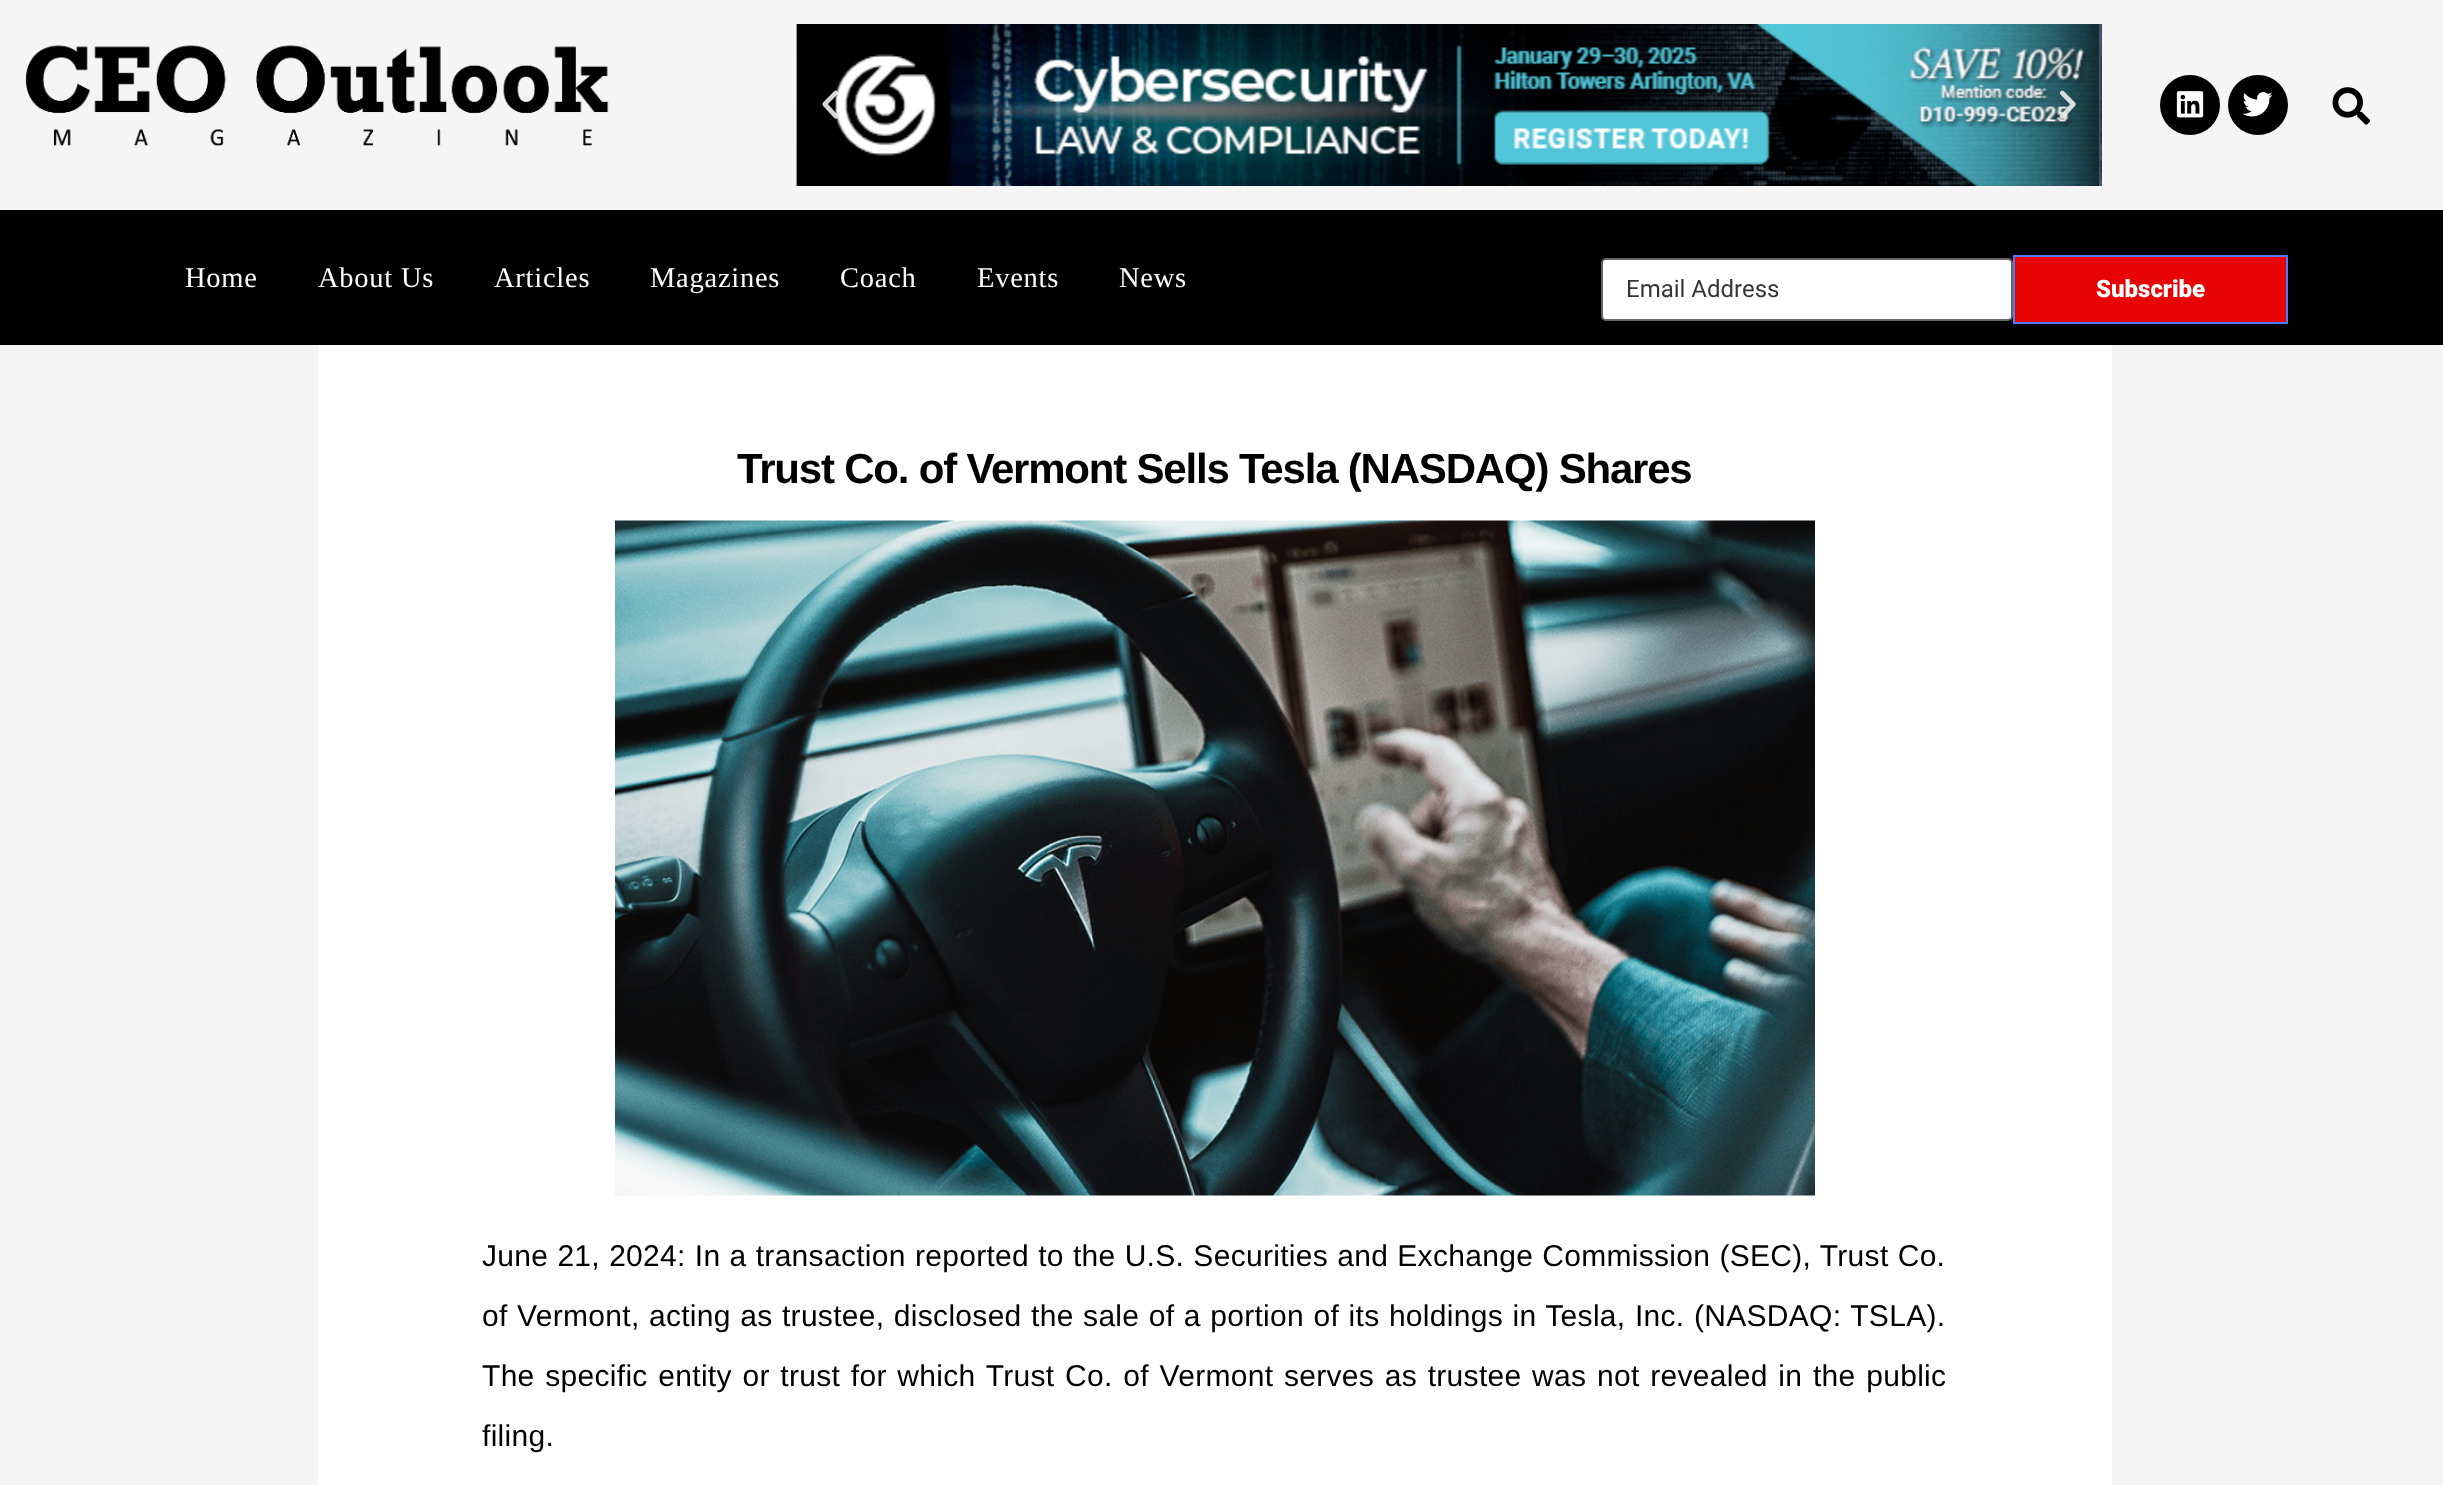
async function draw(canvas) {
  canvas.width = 2443;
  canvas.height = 1485;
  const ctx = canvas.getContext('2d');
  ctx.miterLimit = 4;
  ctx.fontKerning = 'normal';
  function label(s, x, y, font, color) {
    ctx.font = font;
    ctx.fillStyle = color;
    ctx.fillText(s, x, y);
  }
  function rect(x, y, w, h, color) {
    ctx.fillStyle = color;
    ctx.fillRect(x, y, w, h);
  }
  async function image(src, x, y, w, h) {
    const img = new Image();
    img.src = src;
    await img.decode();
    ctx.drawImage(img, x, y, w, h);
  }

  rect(0, 0, 2443, 1485, '#f5f5f5');
  await image('assets/img1.png', 25, 45, 584, 101);
  await image('assets/img2.png', 796, 24, 1, 162);
  await image('assets/img3.png', 797, 24, 1303, 162);
  await image('assets/img4.png', 2100, 24, 2, 162);
  await image('assets/img5.png', 822, 90, 16, 29);
  await image('assets/img6.png', 2059, 90, 17, 29);
  ctx.fillStyle = '#000';
  ctx.beginPath();
  ctx.arc(2190, 105, 30, 0, 2 * Math.PI);
  ctx.fill();
  await image('assets/img7.png', 2176, 91, 28, 27);
  ctx.beginPath();
  ctx.arc(2258, 105, 30, 0, 2 * Math.PI);
  ctx.fill();
  await image('assets/img8.png', 2242, 92, 31, 25);
  await image('assets/img9.png', 2332, 87, 38, 38);
  rect(0, 210, 2443, 135, '#000');
  ctx.letterSpacing = '0.75px';
  label('Home', 185, 287, '28.5px Liberation Serif', '#fff');
  label('About Us', 318, 287, '28.5px Liberation Serif', '#fff');
  label('Articles', 494, 287, '28.5px Liberation Serif', '#fff');
  label('Magazines', 650, 287, '28.5px Liberation Serif', '#fff');
  label('Coach', 840, 287, '28.5px Liberation Serif', '#fff');
  label('Events', 977, 287, '28.5px Liberation Serif', '#fff');
  label('News', 1119, 287, '28.5px Liberation Serif', '#fff');
  ctx.beginPath();
  ctx.roundRect(1602, 259, 410, 61, 4);
  ctx.fill();
  ctx.strokeStyle = '#666';
  ctx.lineWidth = 2;
  ctx.stroke();
  ctx.letterSpacing = '0px';
  label('Email Address', 1626, 297, '24px Roboto', '#363636');
  ctx.fillStyle = '#e60404';
  ctx.beginPath();
  ctx.rect(2014, 256, 273, 67);
  ctx.fill();
  ctx.strokeStyle = '#4d7bfb';
  ctx.stroke();
  label('Subscribe', 2096, 297, '900 24px Roboto', '#fff');
  rect(318, 345, 1794, 1140, '#fff');
  ctx.letterSpacing = '-1.2px';
  label('Trust Co. of Vermont Sells Tesla (NASDAQ) Shares', 737, 483, 'bold 42px Liberation Sans', '#000');
  await image('assets/img10.png', 615, 520, 1200, 676);
  ctx.letterSpacing = '0.3px';
  ctx.wordSpacing = '0.5px';
  label('June 21, 2024: In a transaction reported to the U.S. Securities and Exchange Commission (SEC), Trust Co.', 482, 1266, '30px Liberation Sans', '#000');
  ctx.wordSpacing = '0.8px';
  label('of Vermont, acting as trustee, disclosed the sale of a portion of its holdings in Tesla, Inc. (NASDAQ: TSLA).', 482, 1326, '30px Liberation Sans', '#000');
  ctx.wordSpacing = '2px';
  label('The specific entity or trust for which Trust Co. of Vermont serves as trustee was not revealed in the public', 482, 1386, '30px Liberation Sans', '#000');
  ctx.wordSpacing = '0px';
  label('filing.', 482, 1446, '30px Liberation Sans', '#000');
}

draw(document.querySelector('canvas'));
